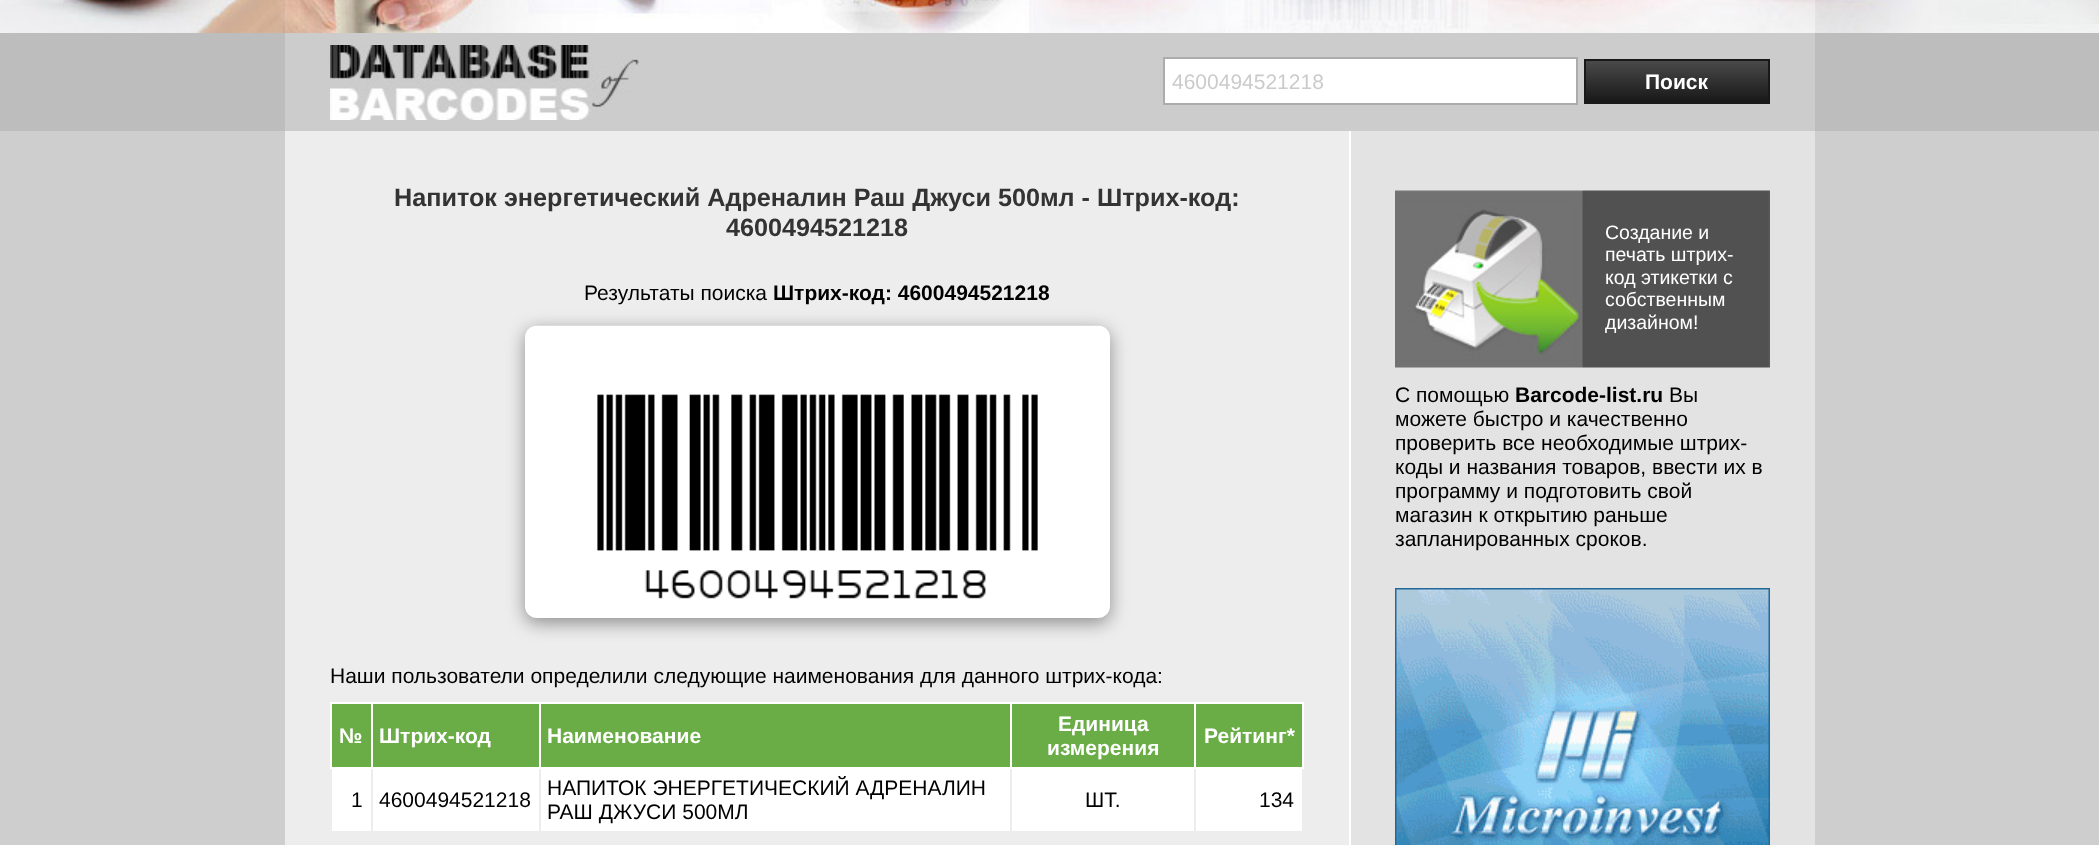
async function draw(canvas) {
  canvas.width = 2099;
  canvas.height = 845;
  const ctx = canvas.getContext('2d');
  ctx.miterLimit = 4;
  ctx.fontKerning = 'normal';
  function label(s, x, y, font, color) {
    ctx.font = font;
    ctx.fillStyle = color;
    ctx.fillText(s, x, y);
  }
  function rect(x, y, w, h, color) {
    ctx.fillStyle = color;
    ctx.fillRect(x, y, w, h);
  }
  async function image(src, x, y, w, h) {
    const img = new Image();
    img.src = src;
    await img.decode();
    ctx.drawImage(img, x, y, w, h);
  }
  let gradient;

  rect(0, 0, 2099, 845, '#cecece');
  await image('assets/img1.png', 0, 0, 2099, 33);
  rect(0, 33, 2099, 98, '#bdbdbd');
  rect(285, 33, 1530, 98, '#ccc');
  await image('assets/img2.png', 330, 45, 309, 75);
  ctx.fillStyle = '#fff';
  ctx.beginPath();
  ctx.rect(1164, 58, 413, 46);
  ctx.fill();
  ctx.strokeStyle = '#acacac';
  ctx.lineWidth = 2;
  ctx.stroke();
  label('4600494521218', 1172, 89, '21px Liberation Sans', '#cbcbcb');
  gradient = ctx.createLinearGradient(1677, 60, 1677, 102);
  gradient.addColorStop(0, '#4c4b4c');
  gradient.addColorStop(1, '#181819');
  ctx.fillStyle = gradient;
  ctx.fillRect(1586, 61, 182, 41);
  ctx.strokeStyle = '#191919';
  ctx.strokeRect(1585, 60, 184, 43);
  label('Поиск', 1645, 89, 'bold 21px Liberation Sans', '#fff');
  rect(285, 131, 1064, 714, '#ededed');
  label('Напиток энергетический Адреналин Раш Джуси 500мл - Штрих-код:', 394, 206, 'bold 25.2px Liberation Sans', '#333');
  label('4600494521218', 726, 236, 'bold 25.2px Liberation Sans', '#333');
  ctx.fillStyle = '#00000066';
  ctx.filter = 'blur(9px)';
  ctx.beginPath();
  ctx.roundRect(525, 330, 585, 293, 12);
  ctx.fill();
  ctx.filter = 'none';
  label('Результаты поиска', 584, 300, '21px Liberation Sans', '#000');
  label('Штрих-код: 4600494521218', 773, 300, 'bold 21px Liberation Sans', '#000');
  await image('assets/img3.png', 525, 325, 585, 293);
  label('Наши пользователи определили следующие наименования для данного штрих-кода:', 330, 683, '21px Liberation Sans', '#000');
  rect(332, 704, 39, 63, '#6aad46');
  rect(1194, 702, 110, 2, '#fff');
  rect(1302, 702, 2, 66, '#fff');
  rect(1194, 767, 110, 2, '#fff');
  rect(1194, 702, 2, 66, '#fff');
  rect(1010, 702, 186, 2, '#fff');
  rect(1010, 767, 186, 2, '#fff');
  rect(1010, 702, 2, 66, '#fff');
  rect(539, 702, 472, 2, '#fff');
  rect(539, 767, 472, 2, '#fff');
  rect(539, 702, 2, 66, '#fff');
  rect(371, 702, 169, 2, '#fff');
  rect(371, 767, 169, 2, '#fff');
  rect(371, 702, 2, 66, '#fff');
  rect(330, 702, 42, 2, '#fff');
  rect(330, 767, 42, 2, '#fff');
  rect(330, 702, 2, 66, '#fff');
  label('№', 339, 743, 'bold 21px Liberation Sans', '#fff');
  rect(373, 704, 166, 63, '#6aad46');
  label('Штрих-код', 379, 743, 'bold 21px Liberation Sans', '#fff');
  rect(541, 704, 469, 63, '#6aad46');
  label('Наименование', 547, 743, 'bold 21px Liberation Sans', '#fff');
  rect(1012, 704, 182, 63, '#6aad46');
  label('Единица', 1058, 731, 'bold 21px Liberation Sans', '#fff');
  label('измерения', 1047, 755, 'bold 21px Liberation Sans', '#fff');
  rect(1196, 704, 106, 63, '#6aad46');
  label('Рейтинг*', 1204, 743, 'bold 21px Liberation Sans', '#fff');
  rect(332, 769, 39, 62, '#fff');
  label('1', 351, 807, '21px Liberation Sans', '#000');
  rect(373, 769, 166, 62, '#fff');
  label('4600494521218', 379, 807, '21px Liberation Sans', '#000');
  rect(541, 769, 469, 62, '#fff');
  label('НАПИТОК ЭНЕРГЕТИЧЕСКИЙ АДРЕНАЛИН', 547, 795, '21px Liberation Sans', '#000');
  label('РАШ ДЖУСИ 500МЛ', 547, 819, '21px Liberation Sans', '#000');
  rect(1012, 769, 182, 62, '#fff');
  label('ШТ.', 1085, 807, '21px Liberation Sans', '#000');
  rect(1196, 769, 106, 62, '#fff');
  label('134', 1259, 807, '21px Liberation Sans', '#000');
  rect(1351, 131, 464, 714, '#e3e3e3');
  rect(1349, 131, 2, 714, '#fff');
  await image('assets/img4.png', 1395, 190, 375, 178);
  label('Создание и', 1605, 239, '19.5px Liberation Sans', '#fff');
  label('печать штрих-', 1605, 261, '19.5px Liberation Sans', '#fff');
  label('код этикетки с', 1605, 284, '19.5px Liberation Sans', '#fff');
  label('собственным', 1605, 306, '19.5px Liberation Sans', '#fff');
  label('дизайном!', 1605, 329, '19.5px Liberation Sans', '#fff');
  label('С помощью', 1395, 402, '21px Liberation Sans', '#000');
  label('Barcode-list.ru', 1515, 402, 'bold 21px Liberation Sans', '#000');
  label('Вы', 1669, 402, '21px Liberation Sans', '#000');
  label('можете быстро и качественно', 1395, 426, '21px Liberation Sans', '#000');
  label('проверить все необходимые штрих-', 1395, 450, '21px Liberation Sans', '#000');
  label('коды и названия товаров, ввести их в', 1395, 474, '21px Liberation Sans', '#000');
  label('программу и подготовить свой', 1395, 498, '21px Liberation Sans', '#000');
  label('магазин к открытию раньше', 1395, 522, '21px Liberation Sans', '#000');
  label('запланированных сроков.', 1395, 546, '21px Liberation Sans', '#000');
  await image('assets/img5.png', 1395, 588, 375, 257);
}

draw(document.querySelector('canvas'));
